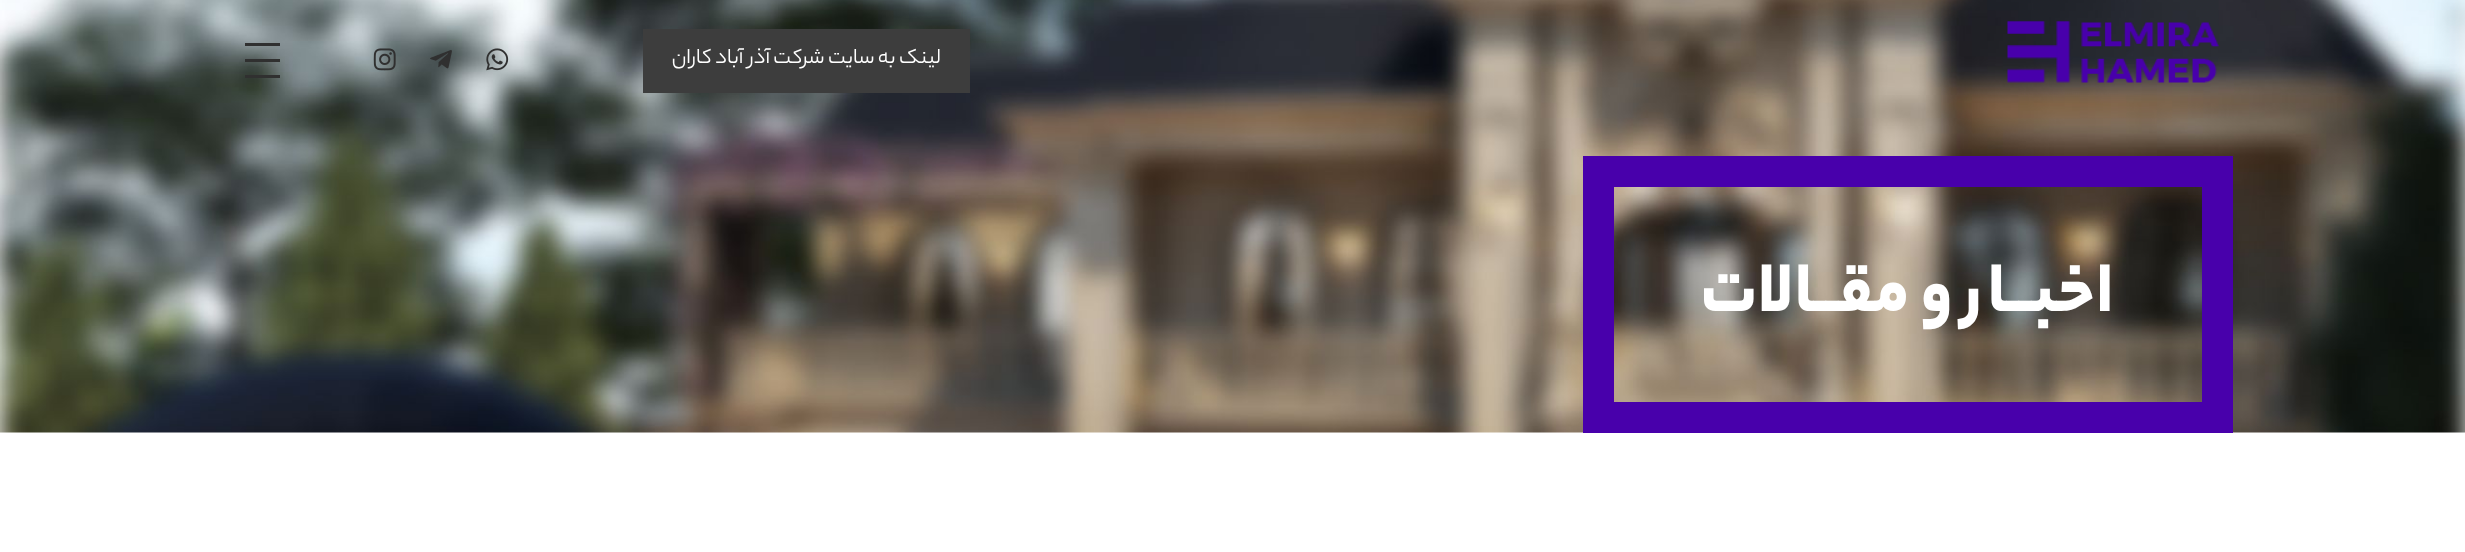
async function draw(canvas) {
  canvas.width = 2465;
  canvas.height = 552;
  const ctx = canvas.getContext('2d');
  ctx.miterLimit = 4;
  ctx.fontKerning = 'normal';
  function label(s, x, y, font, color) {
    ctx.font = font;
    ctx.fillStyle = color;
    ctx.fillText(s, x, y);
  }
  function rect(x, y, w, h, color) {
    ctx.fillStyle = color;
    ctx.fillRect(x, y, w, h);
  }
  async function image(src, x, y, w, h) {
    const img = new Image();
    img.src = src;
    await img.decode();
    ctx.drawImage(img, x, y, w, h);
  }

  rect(0, 0, 2465, 552, '#fff');
  await image('assets/img5.png', 0, 0, 2465, 433);
  await image('assets/img1.png', 2007, 20, 212, 63);
  rect(643, 29, 327, 64, '#3d3d3d');
  ctx.direction = 'rtl';
  label('لینک به سایت شرکت', 941, 63, '22.5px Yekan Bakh', '#fff');
  label('آذر آباد کاران', 770, 63, '22.5px Yekan Bakh', '#fff');
  await image('assets/img2.png', 486, 48, 23, 23);
  await image('assets/img3.png', 430, 50, 22, 19);
  await image('assets/img4.png', 373, 48, 23, 23);
  rect(245, 43, 35, 3, '#303030');
  rect(245, 59, 35, 3, '#303030');
  rect(245, 75, 35, 3, '#303030');
  ctx.strokeStyle = '#4800ab';
  ctx.lineWidth = 31;
  ctx.strokeRect(1598.5, 171.5, 619, 246);
  label('اخبــار و مقــالات', 2114, 311, '900 75px Yekan Bakh', '#fff');
}

draw(document.querySelector('canvas'));
